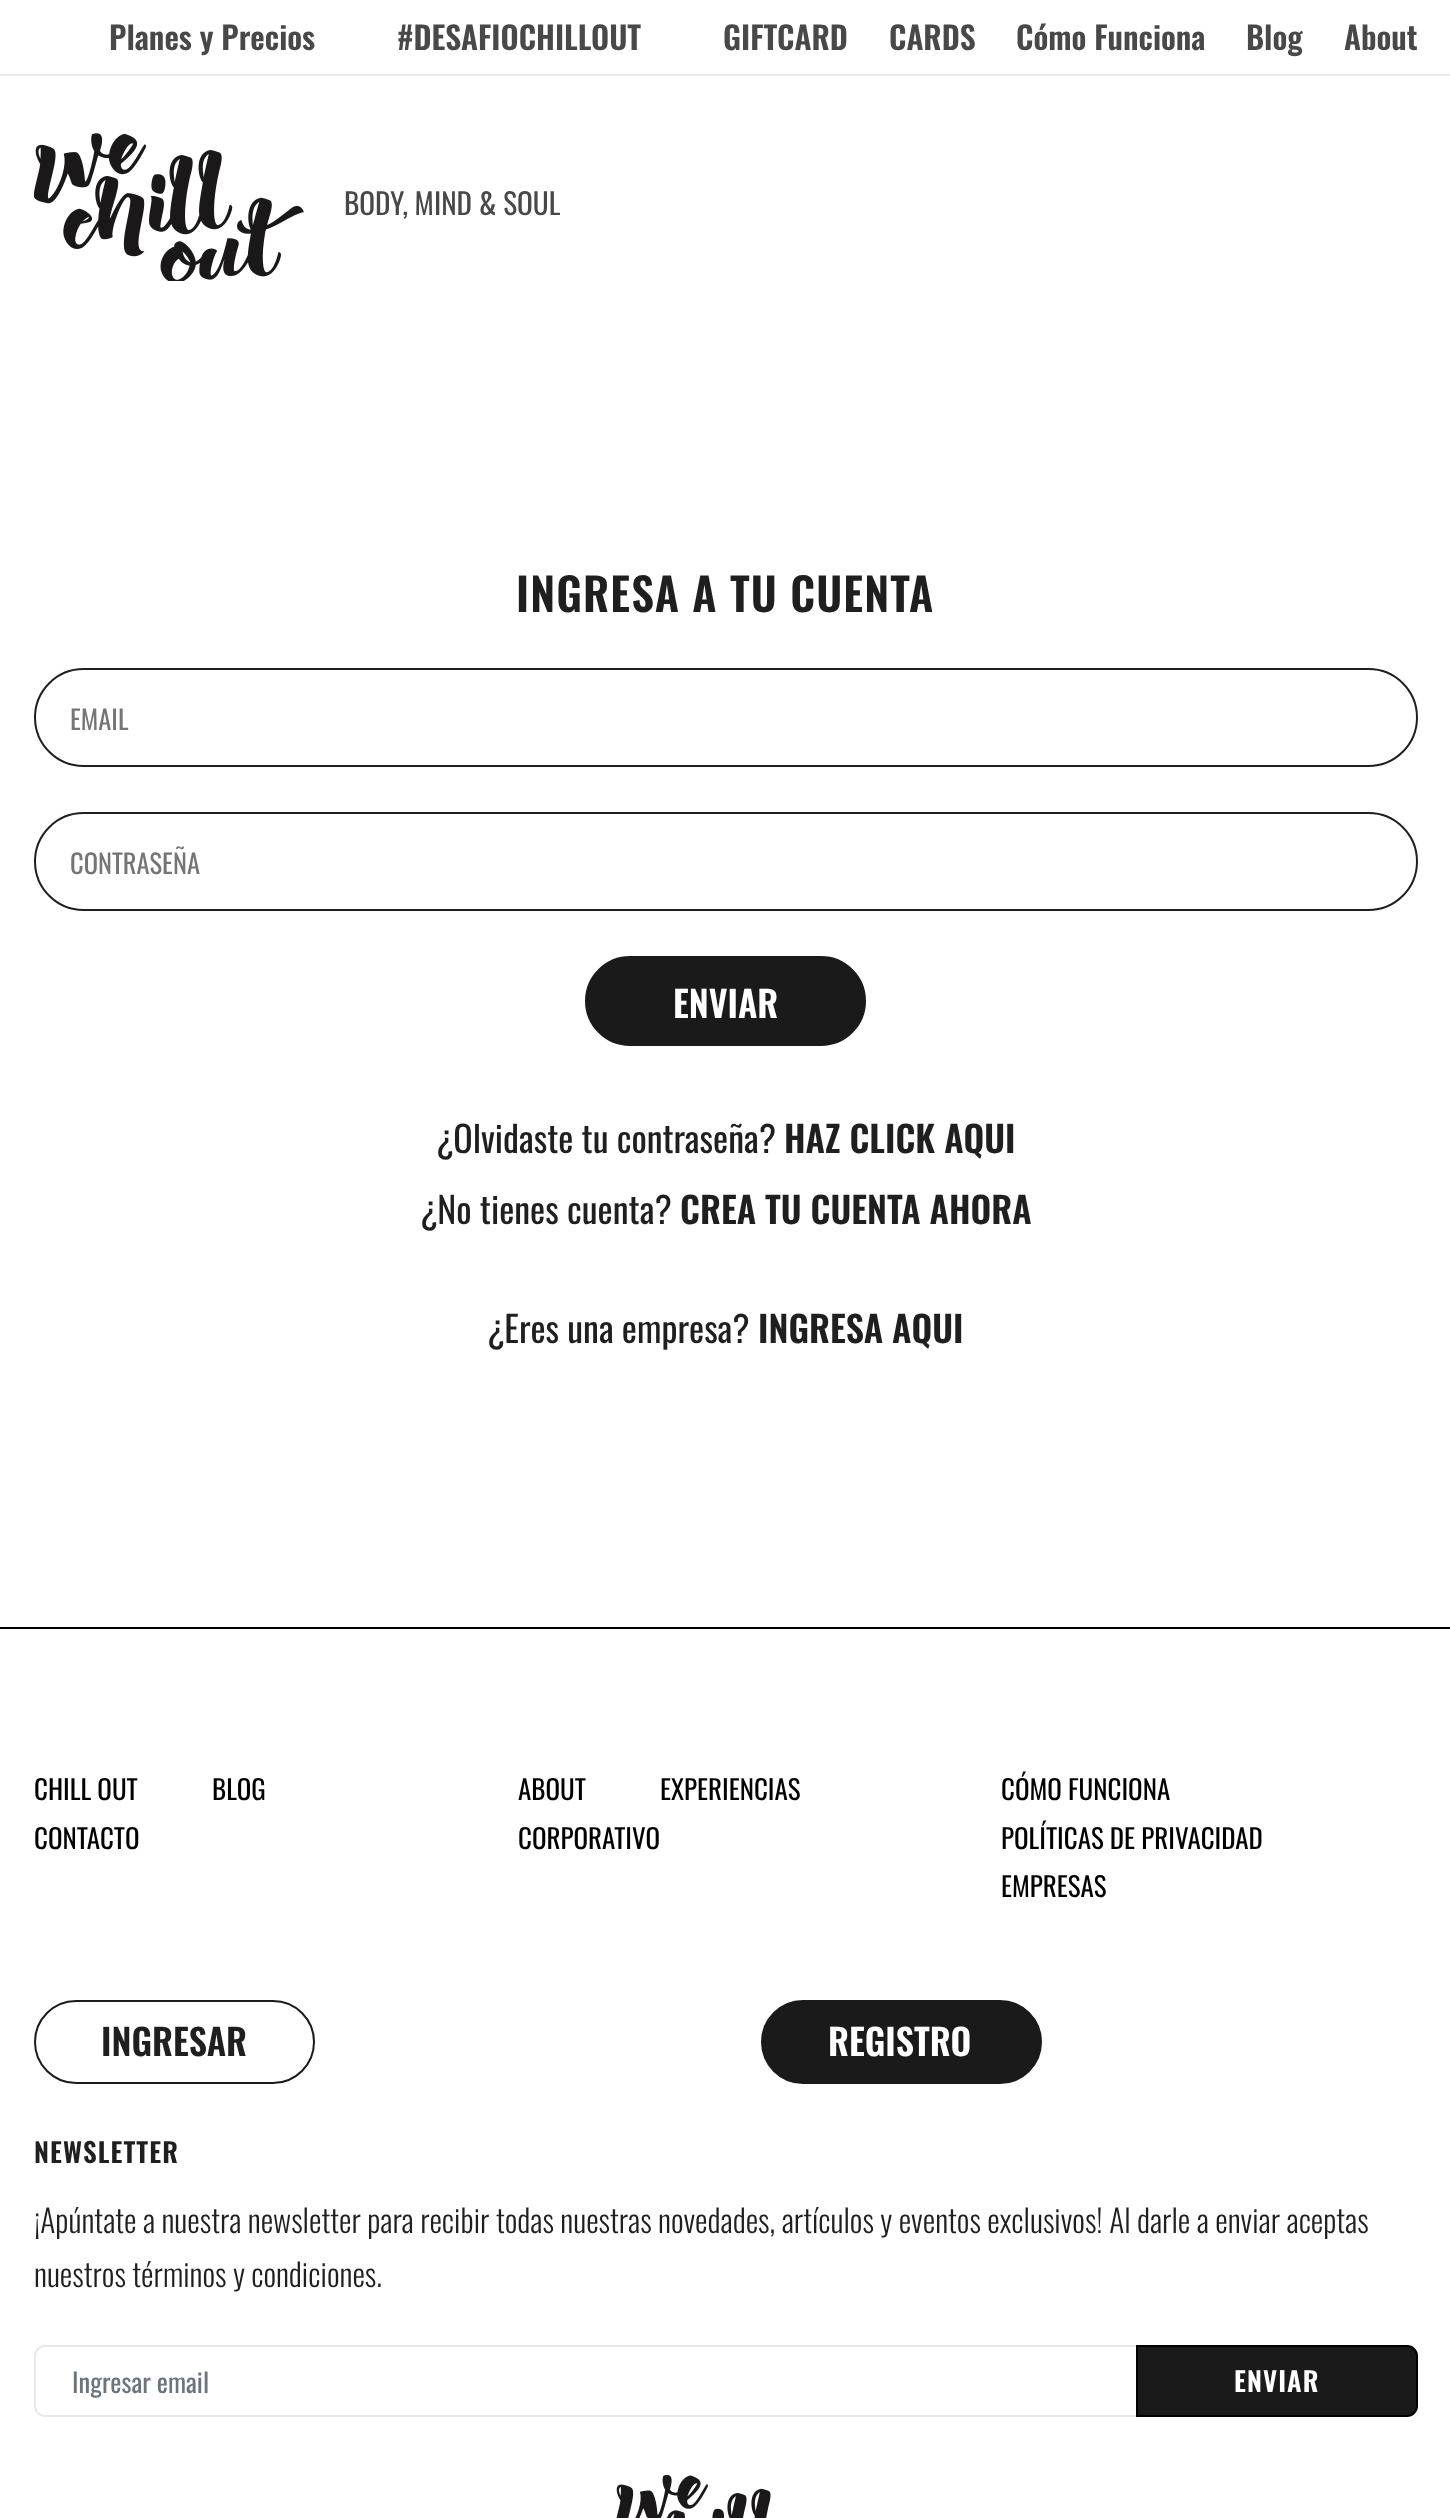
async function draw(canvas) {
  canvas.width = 1450;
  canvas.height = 2518;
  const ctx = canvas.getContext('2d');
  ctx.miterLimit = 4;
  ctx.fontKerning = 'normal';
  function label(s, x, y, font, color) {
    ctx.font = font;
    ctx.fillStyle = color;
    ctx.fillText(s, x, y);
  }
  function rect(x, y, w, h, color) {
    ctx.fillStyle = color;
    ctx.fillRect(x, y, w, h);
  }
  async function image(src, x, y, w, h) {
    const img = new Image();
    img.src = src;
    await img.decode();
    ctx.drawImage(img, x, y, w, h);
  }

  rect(0, 0, 1450, 2518, '#fff');
  rect(0, 74, 1450, 2, '#ebebeb');
  label('Planes y Precios', 109, 50, '600 31.5px Oswald', '#484848');
  label('#DESAFIOCHILLOUT', 397, 50, '600 31.5px Oswald', '#484848');
  label('GIFTCARD', 723, 50, '600 31.5px Oswald', '#484848');
  label('CARDS', 889, 50, '600 31.5px Oswald', '#484848');
  label('Cómo Funciona', 1016, 50, '600 31.5px Oswald', '#484848');
  label('Blog', 1246, 50, '600 31.5px Oswald', '#484848');
  label('About', 1344, 50, '600 31.5px Oswald', '#484848');
  await image('assets/img1.png', 34, 133, 270, 148);
  label('BODY, MIND & SOUL', 344, 215, '29.25px Oswald', '#484848');
  ctx.letterSpacing = '1.1px';
  label('INGRESA A TU CUENTA', 516, 612, '600 45px Oswald', '#1f1f1f');
  ctx.beginPath();
  ctx.roundRect(35, 669, 1382, 97, 48.5);
  ctx.strokeStyle = '#1f1f1f';
  ctx.lineWidth = 2;
  ctx.stroke();
  ctx.letterSpacing = '0px';
  label('EMAIL', 70, 730, '26.5px Oswald', '#757575');
  ctx.beginPath();
  ctx.roundRect(35, 813, 1382, 97, 48.5);
  ctx.stroke();
  label('CONTRASEÑA', 70, 874, '26.5px Oswald', '#757575');
  ctx.fillStyle = '#1a1a1a';
  ctx.beginPath();
  ctx.roundRect(586, 957, 279, 88, 44);
  ctx.fill();
  ctx.strokeStyle = '#1a1a1a';
  ctx.stroke();
  label('ENVIAR', 673, 1018, '600 36px Oswald', '#fff');
  label('¿Olvidaste tu contraseña?', 436, 1153, '36px Oswald', '#1f1f1f');
  label('HAZ CLICK AQUI', 784, 1153, '600 36px Oswald', '#1f1f1f');
  label('¿No tienes cuenta?', 420, 1224, '36px Oswald', '#1f1f1f');
  label('CREA TU CUENTA AHORA', 680, 1224, '600 36px Oswald', '#1f1f1f');
  label('¿Eres una empresa?', 487, 1343, '36px Oswald', '#1f1f1f');
  label('INGRESA AQUI', 758, 1343, '600 36px Oswald', '#1f1f1f');
  rect(0, 1627, 1450, 2, '#000');
  label('CHILL OUT', 34, 1800, '27px Oswald', '#000');
  label('BLOG', 212, 1800, '27px Oswald', '#000');
  label('CONTACTO', 34, 1849, '27px Oswald', '#000');
  label('ABOUT', 518, 1800, '27px Oswald', '#000');
  label('EXPERIENCIAS', 660, 1800, '27px Oswald', '#000');
  label('CORPORATIVO', 518, 1849, '27px Oswald', '#000');
  label('CÓMO FUNCIONA', 1001, 1800, '27px Oswald', '#000');
  label('POLÍTICAS DE PRIVACIDAD', 1001, 1849, '27px Oswald', '#000');
  label('EMPRESAS', 1001, 1897, '27px Oswald', '#000');
  ctx.beginPath();
  ctx.roundRect(35, 2001, 279, 82, 41);
  ctx.stroke();
  label('INGRESAR', 101, 2056, '600 36px Oswald', '#1f1f1f');
  ctx.fillStyle = '#1a1a1a';
  ctx.beginPath();
  ctx.roundRect(762, 2001, 279, 82, 41);
  ctx.fill();
  ctx.stroke();
  label('REGISTRO', 828, 2056, '600 36px Oswald', '#fff');
  ctx.letterSpacing = '1.1px';
  label('NEWSLETTER', 34, 2163, '600 27px Oswald', '#1f1f1f');
  ctx.letterSpacing = '0px';
  label('¡Apúntate a nuestra newsletter para recibir todas nuestras novedades, artículos y eventos exclusivos! Al darle a enviar aceptas', 34, 2233, '300 31.5px Oswald', '#1f1f1f');
  label('nuestros términos y condiciones.', 34, 2287, '300 31.5px Oswald', '#1f1f1f');
  ctx.beginPath();
  ctx.roundRect(35, 2346, 1109, 70, [10, 0, 0, 10]);
  ctx.strokeStyle = '#e6e8eb';
  ctx.stroke();
  label('Ingresar email', 72, 2393, '26.5px Oswald', '#6c757d');
  ctx.fillStyle = '#1a1a1a';
  ctx.beginPath();
  ctx.roundRect(1137, 2346, 280, 70, [0, 10, 10, 0]);
  ctx.fill();
  ctx.strokeStyle = '#000';
  ctx.stroke();
  ctx.letterSpacing = '1.1px';
  label('ENVIAR', 1234, 2392, '600 27px Oswald', '#fff');
  await image('assets/img2.png', 616, 2475, 155, 43);
}

draw(document.querySelector('canvas'));
